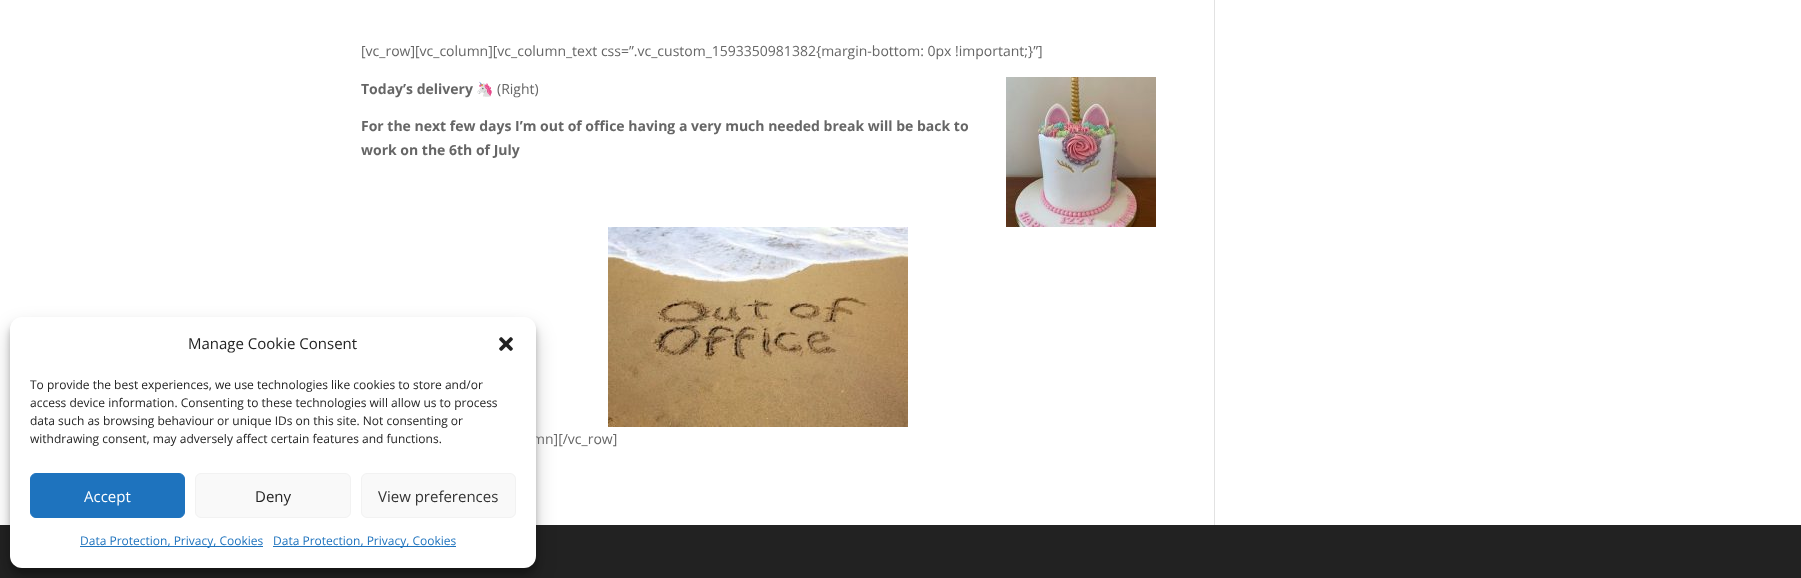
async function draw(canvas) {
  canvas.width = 1801;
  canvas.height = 578;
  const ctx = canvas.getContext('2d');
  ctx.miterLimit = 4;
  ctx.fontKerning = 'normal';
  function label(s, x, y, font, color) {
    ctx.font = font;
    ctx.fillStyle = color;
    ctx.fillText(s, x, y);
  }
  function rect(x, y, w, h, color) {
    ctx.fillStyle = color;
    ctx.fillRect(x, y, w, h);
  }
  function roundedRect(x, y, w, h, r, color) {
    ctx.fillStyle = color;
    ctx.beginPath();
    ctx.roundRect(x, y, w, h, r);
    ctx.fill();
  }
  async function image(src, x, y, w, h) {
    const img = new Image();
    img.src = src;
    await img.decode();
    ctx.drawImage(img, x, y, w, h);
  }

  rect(0, 0, 1801, 578, '#fff');
  rect(0, 525, 1801, 53, '#222');
  ctx.fillStyle = '#0000003b';
  ctx.filter = 'blur(3px)';
  ctx.beginPath();
  ctx.roundRect(10, 323, 526, 251, 12);
  ctx.fill();
  ctx.filter = 'none';
  ctx.fillStyle = '#00000030';
  ctx.filter = 'blur(10px)';
  ctx.beginPath();
  ctx.roundRect(10, 327, 526, 251, 12);
  ctx.fill();
  ctx.filter = 'none';
  label('mn][/vc_row]', 532, 444, '14px Open Sans', '#666');
  roundedRect(10, 317, 526, 251, 12, '#fff');
  label('Manage Cookie Consent', 188, 349, '15px Open Sans', '#222');
  await image('assets/img1.png', 499, 337, 14, 14);
  label('To provide the best experiences, we use technologies like cookies to store and/or', 30, 389, '12px Open Sans', '#222');
  label('access device information. Consenting to these technologies will allow us to process', 30, 407, '12px Open Sans', '#222');
  label('data such as browsing behaviour or unique IDs on this site. Not consenting or', 30, 425, '12px Open Sans', '#222');
  label('withdrawing consent, may adversely affect certain features and functions.', 30, 443, '12px Open Sans', '#222');
  ctx.fillStyle = '#1e73be';
  ctx.beginPath();
  ctx.roundRect(30.5, 473.5, 154, 44, 5.5);
  ctx.fill();
  ctx.strokeStyle = '#1e73be';
  ctx.stroke();
  label('Accept', 84, 502, '15px Open Sans', '#fff');
  ctx.fillStyle = '#f9f9f9';
  ctx.beginPath();
  ctx.roundRect(195.5, 473.5, 155, 44, 5.5);
  ctx.fill();
  ctx.strokeStyle = '#f2f2f2';
  ctx.stroke();
  label('Deny', 255, 502, '15px Open Sans', '#222');
  ctx.fillStyle = '#f9f9f9';
  ctx.beginPath();
  ctx.roundRect(361.5, 473.5, 154, 44, 5.5);
  ctx.fill();
  ctx.stroke();
  label('View preferences', 378, 502, '15px Open Sans', '#333');
  rect(80, 546, 183, 1, '#1e73be');
  label('Data Protection, Privacy, Cookies', 80, 545, '12px Open Sans', '#1e73be');
  rect(273, 546, 183, 1, '#1e73be');
  label('Data Protection, Privacy, Cookies', 273, 545, '12px Open Sans', '#1e73be');
  label('[vc_row][vc_column][vc_column_text css=”.vc_custom_1593350981382{margin-bottom: 0px !important;}”]', 361, 56, '14px Open Sans', '#666');
  label('Today’s delivery', 361, 94, 'bold 14px Open Sans', '#666');
  label('🦄', 476, 94, 'bold 14px Noto Color Emoji', '#666');
  label('(Right)', 497, 94, '14px Open Sans', '#666');
  await image('assets/img2.png', 1006, 77, 150, 150);
  label('For the next few days I’m out of office having a very much needed break will be back to', 361, 131, 'bold 14px Open Sans', '#666');
  label('work on the 6th of July', 361, 155, 'bold 14px Open Sans', '#666');
  await image('assets/img3.png', 608, 227, 300, 200);
  rect(1214, 0, 1, 525, '#e2e2e2');
}

draw(document.querySelector('canvas'));
